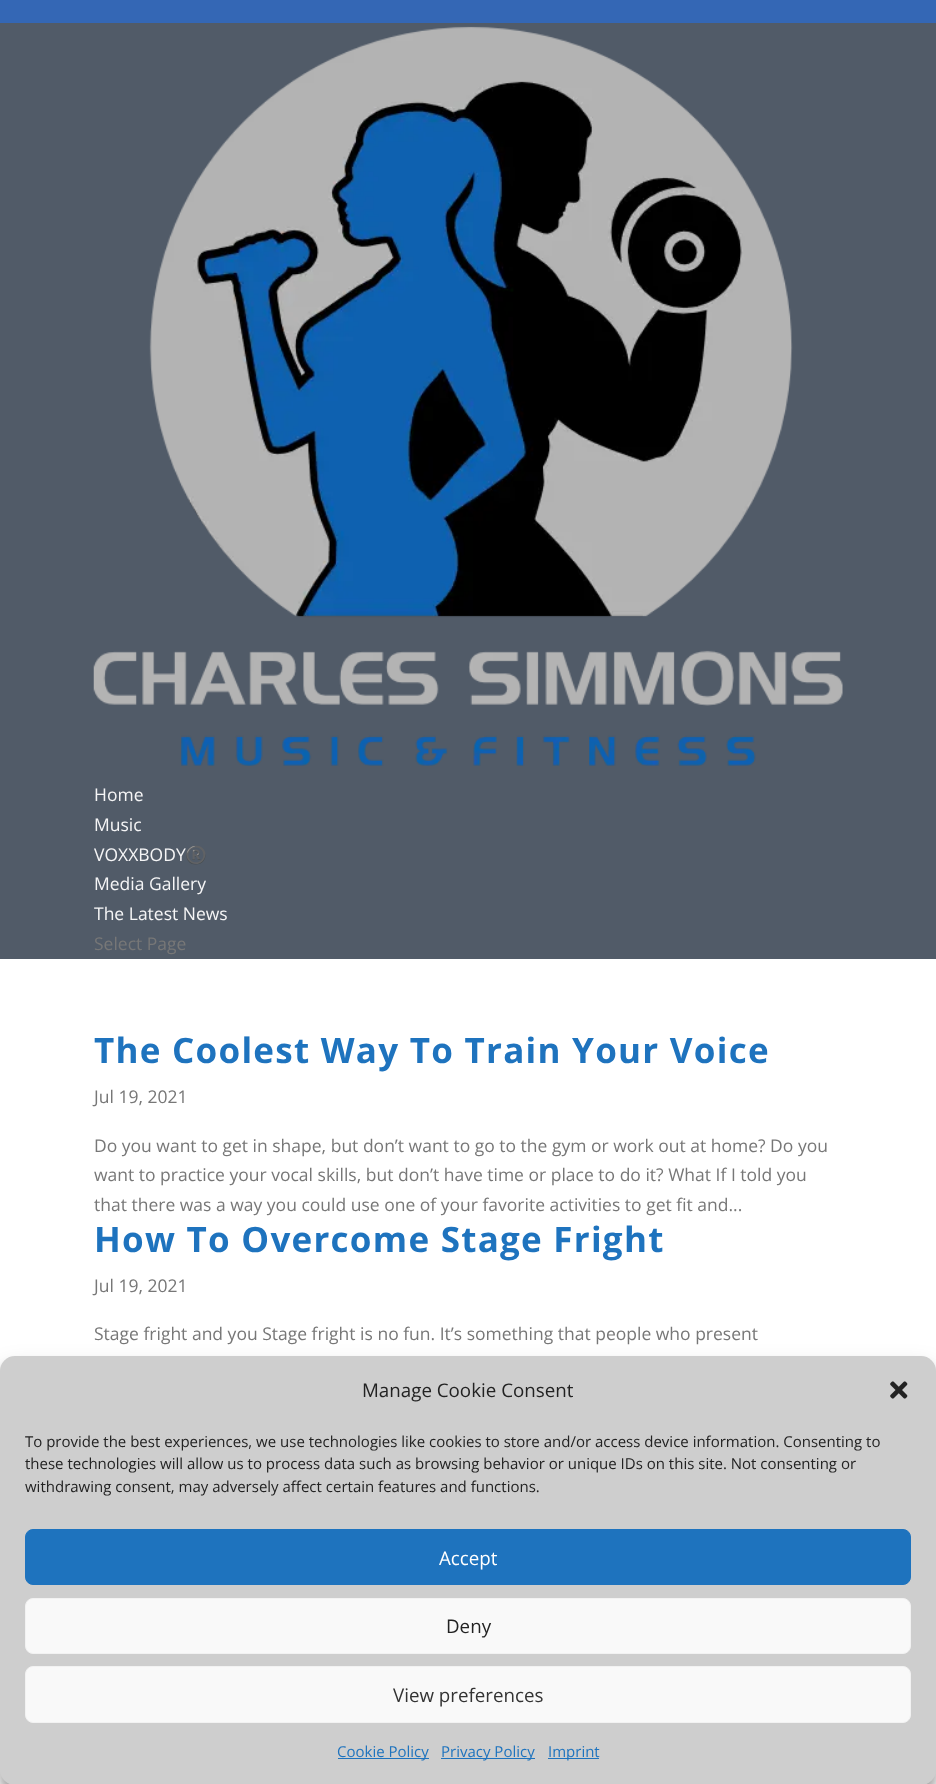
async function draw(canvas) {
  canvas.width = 936;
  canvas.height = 1784;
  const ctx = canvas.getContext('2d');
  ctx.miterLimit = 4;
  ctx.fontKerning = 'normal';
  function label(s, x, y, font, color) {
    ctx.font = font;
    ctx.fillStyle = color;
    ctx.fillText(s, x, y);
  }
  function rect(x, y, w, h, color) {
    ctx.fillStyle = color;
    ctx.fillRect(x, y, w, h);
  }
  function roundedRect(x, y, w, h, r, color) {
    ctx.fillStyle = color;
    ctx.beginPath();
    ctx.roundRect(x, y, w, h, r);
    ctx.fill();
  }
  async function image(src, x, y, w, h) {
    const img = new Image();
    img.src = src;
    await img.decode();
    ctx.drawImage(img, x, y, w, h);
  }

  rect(0, 0, 936, 1784, '#3467b5');
  rect(0, 23, 936, 936, '#515b68');
  await image('assets/img1.png', 93, 26, 750, 740);
  label('Home', 94, 801, '17.5px Open Sans', '#f5f5f6');
  label('Music', 94, 831, '17.5px Open Sans', '#f5f5f6');
  label('VOXXBODY', 94, 861, '17.5px Open Sans', '#f5f5f6');
  label('®️', 185, 861, '17.5px Noto Color Emoji', '#f5f5f6');
  label('Media Gallery', 94, 890, '17.5px Open Sans', '#f5f5f6');
  label('The Latest News', 94, 920, '17.5px Open Sans', '#f5f5f6');
  label('Select Page', 94, 950, '17.5px Open Sans', '#777');
  rect(0, 959, 936, 825, '#fff');
  ctx.letterSpacing = '1.25px';
  label('The Coolest Way To Train Your Voice', 94, 1063, 'bold 35px Open Sans', '#1e73be');
  ctx.letterSpacing = '0px';
  label('Jul 19, 2021', 94, 1103, '17.5px Open Sans', '#777');
  label('Do you want to get in shape, but don’t want to go to the gym or work out at home? Do you', 94, 1152, '17.5px Open Sans', '#777');
  label('want to practice your vocal skills, but don’t have time or place to do it? What If I told you', 94, 1181, '17.5px Open Sans', '#777');
  label('that there was a way you could use one of your favorite activities to get fit and...', 94, 1211, '17.5px Open Sans', '#777');
  ctx.letterSpacing = '1.25px';
  label('How To Overcome Stage Fright', 94, 1252, 'bold 35px Open Sans', '#1e73be');
  ctx.letterSpacing = '0px';
  label('Jul 19, 2021', 94, 1292, '17.5px Open Sans', '#777');
  label('Stage fright and you Stage fright is no fun. It’s something that people who present', 94, 1340, '17.5px Open Sans', '#777');
  ctx.fillStyle = '#0000003b';
  ctx.filter = 'blur(4px)';
  ctx.beginPath();
  ctx.roundRect(0, 1364, 936, 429, 15);
  ctx.fill();
  ctx.filter = 'none';
  ctx.fillStyle = '#00000030';
  ctx.filter = 'blur(12.5px)';
  ctx.beginPath();
  ctx.roundRect(0, 1369, 936, 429, 15);
  ctx.fill();
  ctx.filter = 'none';
  roundedRect(0, 1356, 936, 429, 15, '#cecece');
  label('Manage Cookie Consent', 362, 1397, '18.75px Open Sans', '#222');
  await image('assets/img2.png', 890, 1381, 18, 18);
  label('To provide the best experiences, we use technologies like cookies to store and/or access device information. Consenting to', 25, 1447, '15px Open Sans', '#222');
  label('these technologies will allow us to process data such as browsing behavior or unique IDs on this site. Not consenting or', 25, 1469, '15px Open Sans', '#222');
  label('withdrawing consent, may adversely affect certain features and functions.', 25, 1492, '15px Open Sans', '#222');
  ctx.fillStyle = '#1e73be';
  ctx.beginPath();
  ctx.roundRect(25.5, 1529.5, 885, 55, 7.5);
  ctx.fill();
  ctx.strokeStyle = '#1e73be';
  ctx.stroke();
  label('Accept', 439, 1565, '18.75px Open Sans', '#fff');
  ctx.fillStyle = '#f9f9f9';
  ctx.beginPath();
  ctx.roundRect(25.5, 1598.5, 885, 55, 7.5);
  ctx.fill();
  ctx.strokeStyle = '#f2f2f2';
  ctx.stroke();
  label('Deny', 446, 1633, '18.75px Open Sans', '#222');
  ctx.fillStyle = '#f9f9f9';
  ctx.beginPath();
  ctx.roundRect(25.5, 1666.5, 885, 56, 7.5);
  ctx.fill();
  ctx.stroke();
  label('View preferences', 393, 1702, '18.75px Open Sans', '#333');
  rect(338, 1758, 91, 1, '#1e73be');
  label('Cookie Policy', 337, 1757, '15px Open Sans', '#1e73be');
  rect(441, 1758, 94, 1, '#1e73be');
  label('Privacy Policy', 441, 1757, '15px Open Sans', '#1e73be');
  rect(548, 1758, 51, 1, '#1e73be');
  label('Imprint', 548, 1757, '15px Open Sans', '#1e73be');
}

draw(document.querySelector('canvas'));
